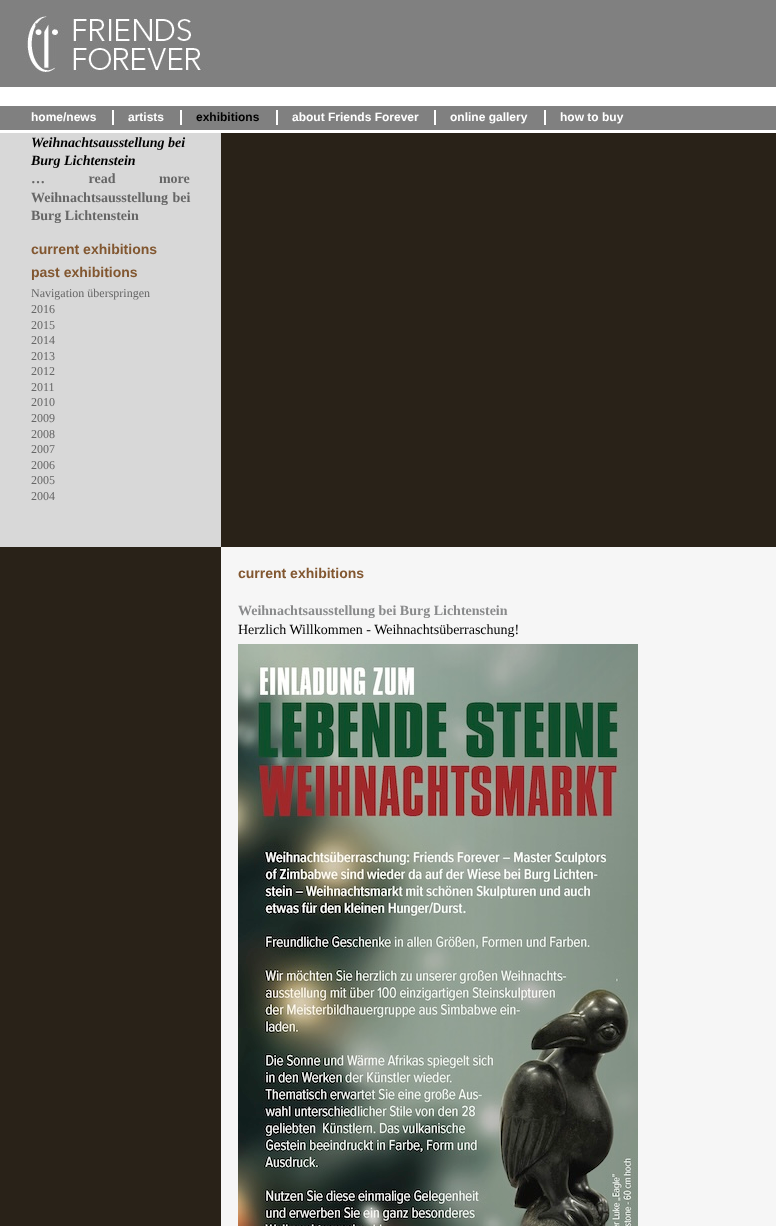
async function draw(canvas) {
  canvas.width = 776;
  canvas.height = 1226;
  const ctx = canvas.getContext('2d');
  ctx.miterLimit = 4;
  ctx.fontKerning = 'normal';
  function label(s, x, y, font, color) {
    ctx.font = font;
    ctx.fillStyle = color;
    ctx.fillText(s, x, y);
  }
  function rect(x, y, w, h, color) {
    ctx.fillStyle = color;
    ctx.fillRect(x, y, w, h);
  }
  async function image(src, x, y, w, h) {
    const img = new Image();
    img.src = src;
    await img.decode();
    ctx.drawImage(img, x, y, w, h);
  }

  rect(0, 0, 776, 1226, '#292218');
  rect(0, 87, 776, 16, '#fff');
  await image('assets/img1.png', 0, 0, 776, 87);
  await image('assets/img2.png', 0, 103, 776, 30);
  rect(112, 110, 2, 15, '#fff');
  label('home/news', 31, 121, 'bold 12px Liberation Sans', '#fff');
  rect(180, 110, 2, 15, '#fff');
  label('artists', 128, 121, 'bold 12px Liberation Sans', '#fff');
  rect(276, 110, 2, 15, '#fff');
  label('exhibitions', 196, 121, 'bold 12px Liberation Sans', '#000');
  rect(434, 110, 2, 15, '#fff');
  label('about Friends Forever', 292, 121, 'bold 12px Liberation Sans', '#fff');
  rect(544, 110, 2, 15, '#fff');
  label('online gallery', 450, 121, 'bold 12px Liberation Sans', '#fff');
  label('how to buy', 560, 121, 'bold 12px Liberation Sans', '#fff');
  rect(0, 133, 221, 414, '#d8d8d8');
  label('Weihnachtsausstellung bei', 31, 147, 'italic bold 14px Liberation Serif', '#000');
  label('Burg Lichtenstein', 31, 165, 'italic bold 14px Liberation Serif', '#000');
  ctx.wordSpacing = '40px';
  label('… read more', 31, 183, 'bold 14px Liberation Serif', '#666');
  ctx.wordSpacing = '1px';
  label('Weihnachtsausstellung bei', 31, 202, 'bold 14px Liberation Serif', '#666');
  ctx.wordSpacing = '0px';
  label('Burg Lichtenstein', 31, 220, 'bold 14px Liberation Serif', '#666');
  label('current exhibitions', 31, 254, 'bold 14px Liberation Sans', '#825730');
  label('past exhibitions', 31, 277, 'bold 14px Liberation Sans', '#825730');
  label('Navigation überspringen', 31, 297, '12px Liberation Serif', '#666');
  label('2016', 31, 313, '12px Liberation Serif', '#666');
  label('2015', 31, 329, '12px Liberation Serif', '#666');
  label('2014', 31, 344, '12px Liberation Serif', '#666');
  label('2013', 31, 360, '12px Liberation Serif', '#666');
  label('2012', 31, 375, '12px Liberation Serif', '#666');
  label('2011', 31, 391, '12px Liberation Serif', '#666');
  label('2010', 31, 406, '12px Liberation Serif', '#666');
  label('2009', 31, 422, '12px Liberation Serif', '#666');
  label('2008', 31, 438, '12px Liberation Serif', '#666');
  label('2007', 31, 453, '12px Liberation Serif', '#666');
  label('2006', 31, 469, '12px Liberation Serif', '#666');
  label('2005', 31, 484, '12px Liberation Serif', '#666');
  label('2004', 31, 500, '12px Liberation Serif', '#666');
  rect(221, 547, 555, 679, '#f6f6f6');
  label('current exhibitions', 238, 578, 'bold 14px Liberation Sans', '#825730');
  label('Weihnachtsausstellung bei Burg Lichtenstein', 238, 615, 'bold 14px Liberation Serif', '#898a8b');
  label('Herzlich Willkommen - Weihnachtsüberraschung!', 238, 634, '14px Liberation Serif', '#000');
  await image('assets/img3.png', 238, 644, 400, 582);
}

draw(document.querySelector('canvas'));
